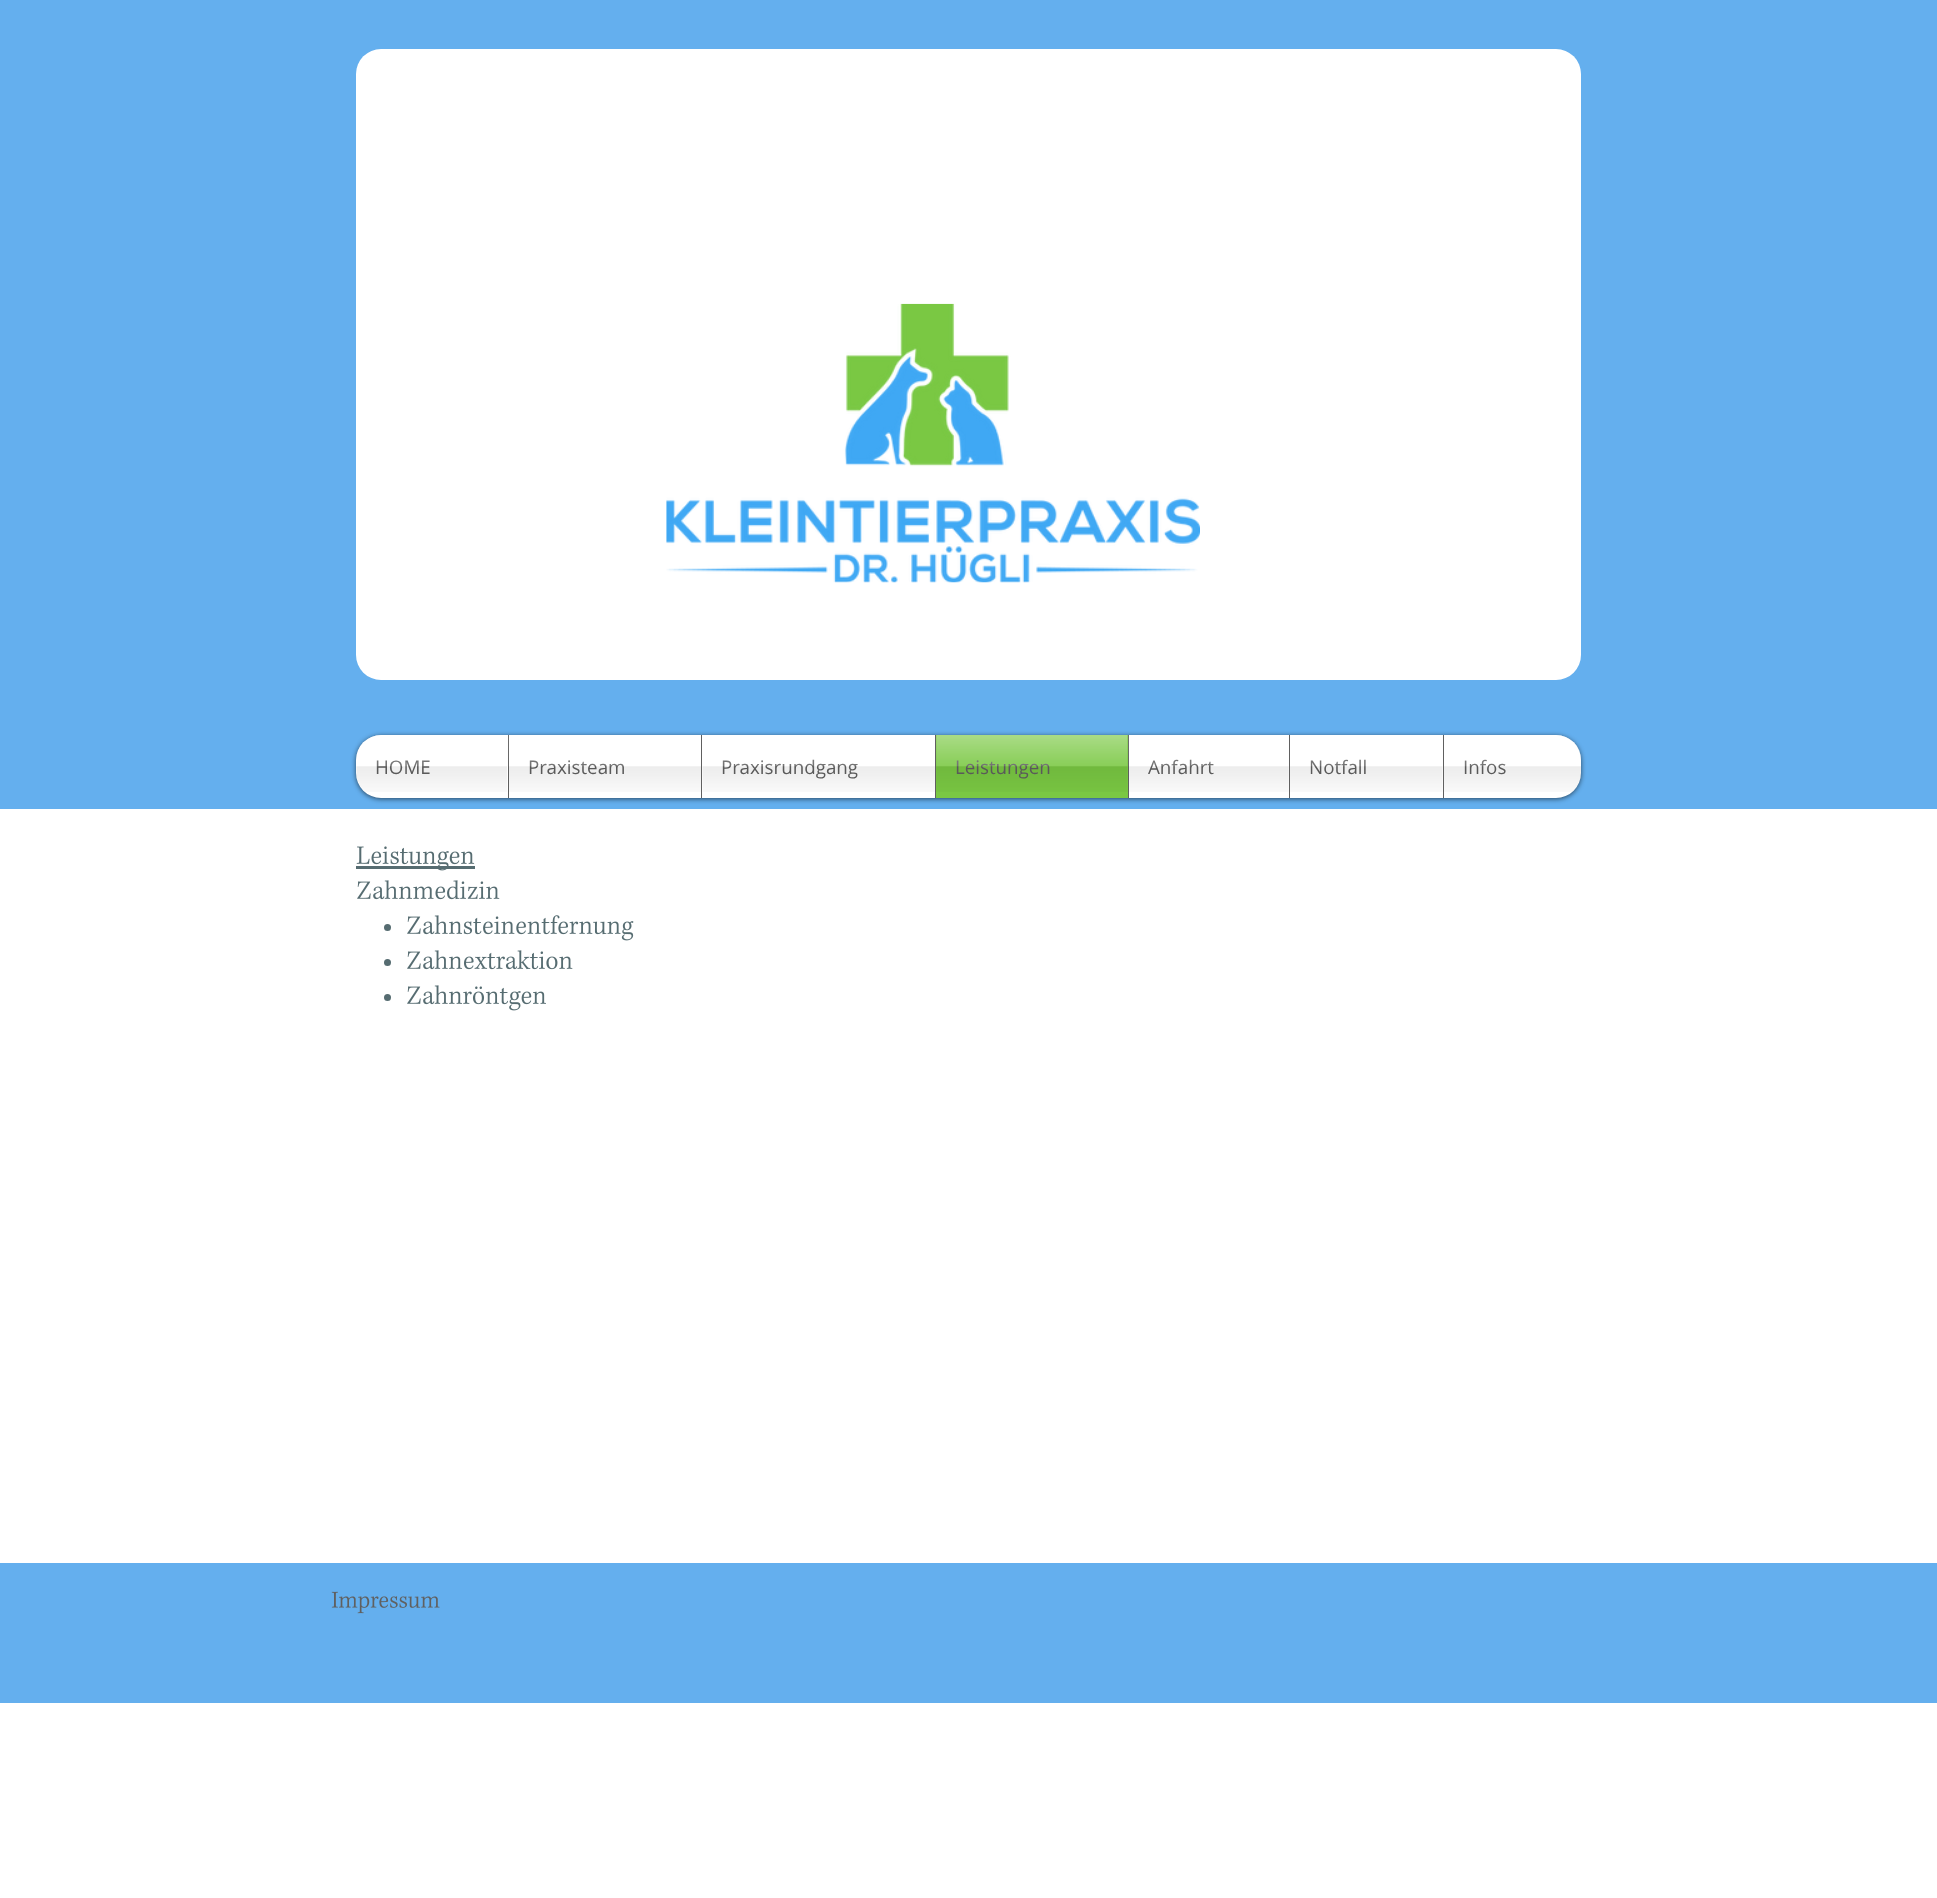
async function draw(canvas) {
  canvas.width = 1937;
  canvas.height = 1898;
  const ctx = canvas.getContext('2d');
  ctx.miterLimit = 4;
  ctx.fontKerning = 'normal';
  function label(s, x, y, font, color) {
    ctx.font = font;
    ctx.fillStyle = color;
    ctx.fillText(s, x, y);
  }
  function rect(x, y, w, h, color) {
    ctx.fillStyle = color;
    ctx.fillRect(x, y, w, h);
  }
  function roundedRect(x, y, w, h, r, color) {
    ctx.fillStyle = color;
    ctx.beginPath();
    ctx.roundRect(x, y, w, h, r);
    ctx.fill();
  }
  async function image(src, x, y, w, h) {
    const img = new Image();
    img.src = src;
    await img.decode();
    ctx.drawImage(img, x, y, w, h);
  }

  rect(0, 0, 1937, 1898, '#fff');
  rect(0, 0, 1937, 809, '#64afee');
  roundedRect(356, 49, 1225, 631, 25, '#fff');
  await image('assets/img1.png', 666, 303, 534, 280);
  ctx.fillStyle = '#00000099';
  ctx.filter = 'blur(2.5px)';
  ctx.beginPath();
  ctx.roundRect(356, 736, 1225, 63, 25);
  ctx.fill();
  ctx.filter = 'none';
  await image('assets/img2.png', 356, 735, 1225, 52);
  ctx.fillStyle = '#fff';
  ctx.beginPath();
  ctx.roundRect(356, 735, 152, 63, [25, 0, 0, 25]);
  ctx.fill();
  label('HOME', 375, 774, '18.75px Open Sans', '#606060');
  await image('assets/img3.png', 356, 735, 151, 57);
  rect(509, 735, 192, 63, '#fff');
  rect(508, 735, 1, 63, '#606060');
  label('Praxisteam', 528, 774, '18.75px Open Sans', '#606060');
  await image('assets/img4.png', 508, 735, 193, 57);
  rect(702, 735, 233, 63, '#fff');
  rect(701, 735, 1, 63, '#606060');
  label('Praxisrundgang', 721, 774, '18.75px Open Sans', '#606060');
  await image('assets/img5.png', 702, 759, 233, 33);
  rect(936, 735, 192, 63, '#7ac843');
  rect(935, 735, 1, 63, '#606060');
  label('Leistungen', 955, 774, '18.75px Open Sans', '#606060');
  await image('assets/img6.png', 936, 735, 192, 57);
  rect(1129, 735, 160, 63, '#fff');
  rect(1128, 735, 1, 63, '#606060');
  label('Anfahrt', 1148, 774, '18.75px Open Sans', '#606060');
  await image('assets/img7.png', 1128, 735, 161, 57);
  rect(1290, 735, 153, 63, '#fff');
  rect(1289, 735, 1, 63, '#606060');
  label('Notfall', 1309, 774, '18.75px Open Sans', '#606060');
  await image('assets/img8.png', 1290, 759, 153, 33);
  ctx.fillStyle = '#fff';
  ctx.beginPath();
  ctx.roundRect(1443, 735, 138, 63, [0, 25, 25, 0]);
  ctx.fill();
  rect(1443, 735, 1, 63, '#606060');
  label('Infos', 1463, 774, '18.75px Open Sans', '#606060');
  await image('assets/img9.png', 1444, 735, 137, 57);
  rect(356, 866, 119, 3, '#566c71');
  await image('assets/img10.png', 356, 846, 119, 25);
  await image('assets/img11.png', 357, 880, 143, 20);
  ctx.beginPath();
  ctx.arc(387.5, 927.5, 3.5, 0, 2 * Math.PI);
  ctx.fill();
  await image('assets/img12.png', 407, 915, 227, 26);
  ctx.beginPath();
  ctx.arc(387.5, 962.5, 3.5, 0, 2 * Math.PI);
  ctx.fill();
  await image('assets/img13.png', 407, 950, 166, 20);
  ctx.beginPath();
  ctx.arc(387.5, 997.5, 3.5, 0, 2 * Math.PI);
  ctx.fill();
  await image('assets/img14.png', 407, 985, 139, 26);
  rect(0, 1563, 1937, 140, '#64afee');
  await image('assets/img15.png', 331, 1591, 109, 23);
}

draw(document.querySelector('canvas'));
